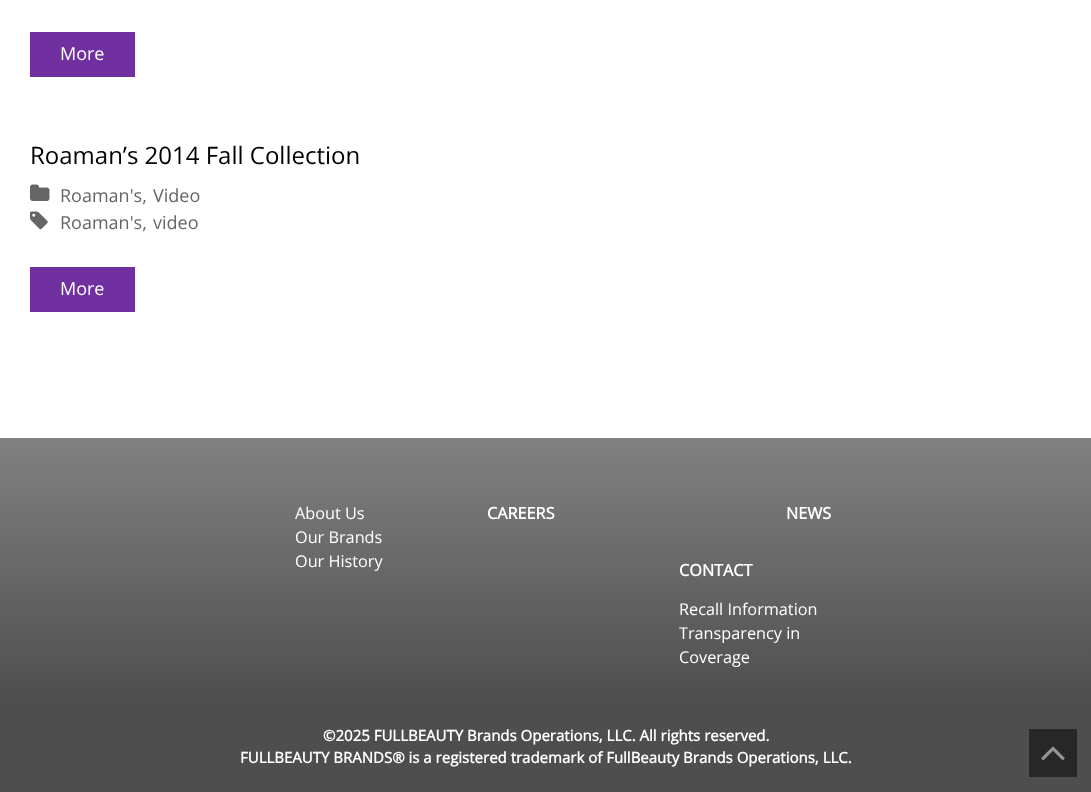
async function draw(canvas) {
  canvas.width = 1091;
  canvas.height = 792;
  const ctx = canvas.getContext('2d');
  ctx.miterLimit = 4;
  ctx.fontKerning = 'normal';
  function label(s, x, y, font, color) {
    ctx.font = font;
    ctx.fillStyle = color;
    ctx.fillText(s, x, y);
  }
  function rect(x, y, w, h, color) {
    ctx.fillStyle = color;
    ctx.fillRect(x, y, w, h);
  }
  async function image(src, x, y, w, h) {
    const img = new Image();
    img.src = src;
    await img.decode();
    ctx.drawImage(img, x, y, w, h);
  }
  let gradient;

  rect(0, 0, 1091, 792, '#fff');
  rect(30, 32, 105, 45, '#7030a0');
  label('More', 60, 60, '18px Open Sans', '#fff');
  label('Roaman’s 2014 Fall Collection', 30, 164, '24px Open Sans', '#000');
  await image('assets/img1.png', 30, 184, 20, 17);
  label('Roaman\'s,', 60, 202, '18px Open Sans', '#666');
  label('Video', 153, 202, '18px Open Sans', '#666');
  await image('assets/img2.png', 30, 211, 18, 19);
  label('Roaman\'s,', 60, 229, '18px Open Sans', '#666');
  label('video', 153, 229, '18px Open Sans', '#666');
  rect(30, 267, 105, 45, '#7030a0');
  label('More', 60, 295, '18px Open Sans', '#fff');
  gradient = ctx.createLinearGradient(546, 438, 546, 702);
  gradient.addColorStop(0, '#818181');
  gradient.addColorStop(1, '#4e4e4e');
  ctx.fillStyle = gradient;
  ctx.fillRect(0, 438, 1091, 264);
  label('About Us', 295, 519, '16.25px Open Sans', '#fff');
  label('Our Brands', 295, 543, '16.25px Open Sans', '#fff');
  label('Our History', 295, 567, '16.25px Open Sans', '#fff');
  label('CAREERS', 487, 519, 'bold 16.25px Open Sans', '#fff');
  label('NEWS', 786, 519, 'bold 16.25px Open Sans', '#fff');
  label('CONTACT', 679, 576, 'bold 16.25px Open Sans', '#fff');
  label('Recall Information', 679, 615, '16.25px Open Sans', '#fff');
  label('Transparency in', 679, 639, '16.25px Open Sans', '#fff');
  label('Coverage', 679, 663, '16.25px Open Sans', '#fff');
  rect(0, 702, 1091, 90, '#4e4e4e');
  label('©2025 FULLBEAUTY Brands Operations, LLC. All rights reserved.', 323, 741, 'bold 15px Open Sans', '#fff');
  label('FULLBEAUTY BRANDS® is a registered trademark of FullBeauty Brands Operations, LLC.', 240, 763, 'bold 15px Open Sans', '#fff');
  rect(1029, 729, 48, 48, '#272727');
  await image('assets/img3.png', 1041, 746, 24, 15);
}

draw(document.querySelector('canvas'));
